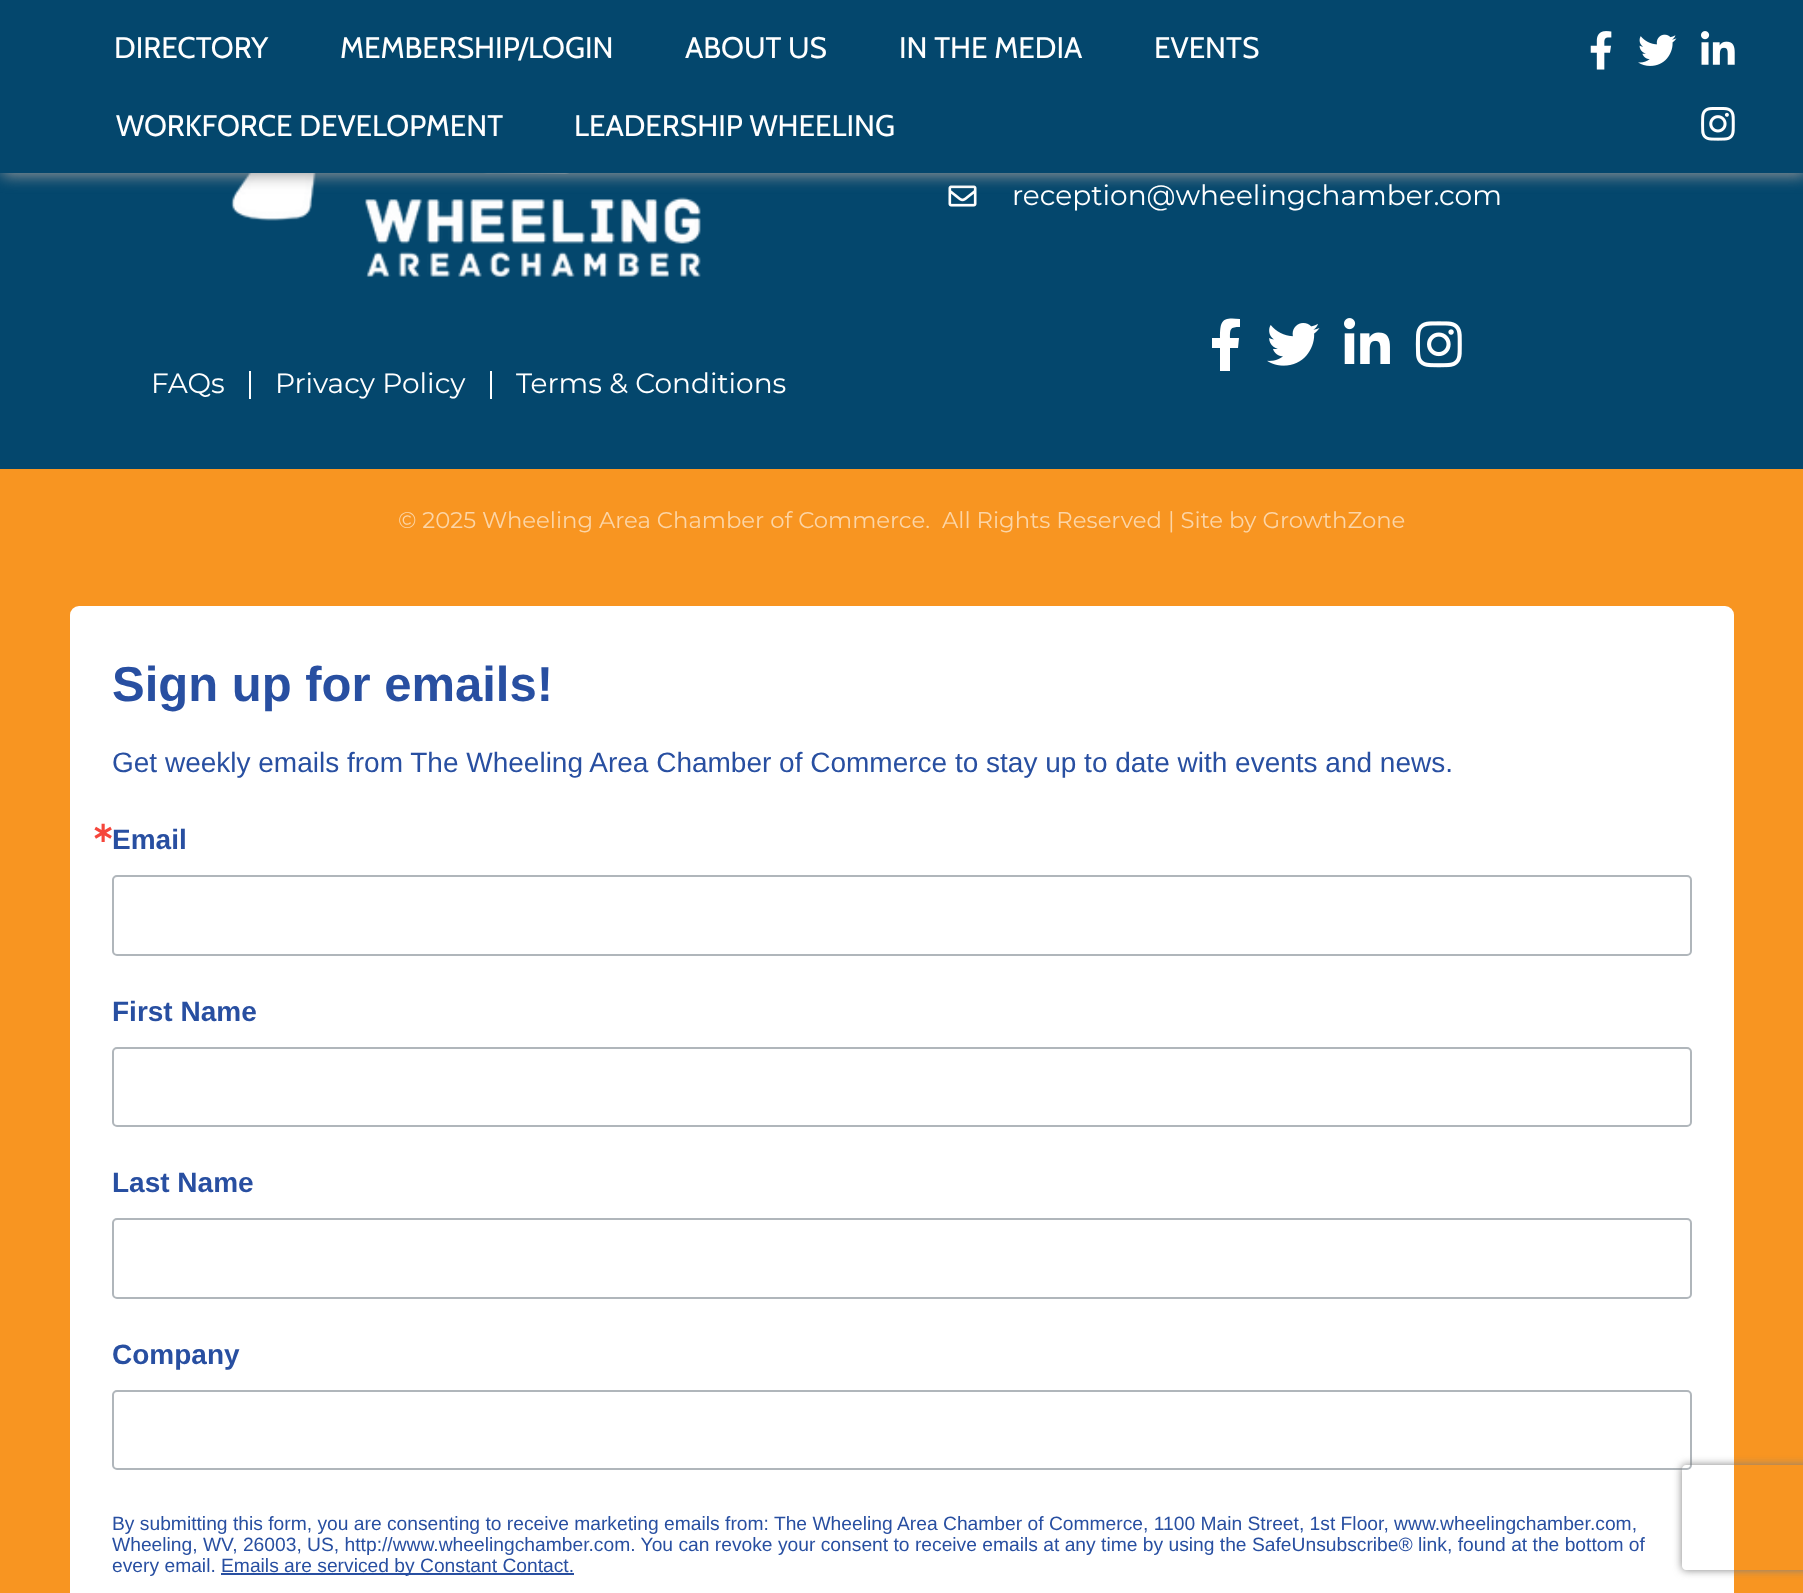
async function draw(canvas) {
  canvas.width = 1803;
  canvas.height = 1593;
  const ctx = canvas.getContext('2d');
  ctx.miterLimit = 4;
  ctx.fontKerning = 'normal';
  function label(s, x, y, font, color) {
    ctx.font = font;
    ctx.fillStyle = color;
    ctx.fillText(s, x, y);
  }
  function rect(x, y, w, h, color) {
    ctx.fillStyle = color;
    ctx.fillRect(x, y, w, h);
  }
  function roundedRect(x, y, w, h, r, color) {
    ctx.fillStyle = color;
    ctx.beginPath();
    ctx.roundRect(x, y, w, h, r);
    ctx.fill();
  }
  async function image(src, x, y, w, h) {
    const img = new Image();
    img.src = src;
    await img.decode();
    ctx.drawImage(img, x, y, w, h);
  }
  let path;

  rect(0, 0, 1803, 1593, '#04476d');
  await image('assets/img5.png', 948, 185, 29, 22);
  await image('assets/img9.png', 231, 173, 470, 105);
  ctx.fillStyle = '#999';
  ctx.filter = 'blur(8px)';
  ctx.beginPath();
  ctx.rect(2, 2, 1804, 173);
  ctx.fill();
  ctx.filter = 'none';
  rect(0, 0, 1803, 173, '#04476d');
  label('DIRECTORY', 114, 58, '29.75px Cabin', '#fff');
  label('MEMBERSHIP/LOGIN', 340, 58, '29.75px Cabin', '#fff');
  label('ABOUT US', 685, 58, '29.75px Cabin', '#fff');
  label('IN THE MEDIA', 899, 58, '29.75px Cabin', '#fff');
  label('EVENTS', 1154, 58, '29.75px Cabin', '#fff');
  label('WORKFORCE DEVELOPMENT', 116, 136, '29.75px Cabin', '#fff');
  label('LEADERSHIP WHEELING', 574, 136, '29.75px Cabin', '#fff');
  await image('assets/img1.png', 1590, 31, 22, 39);
  await image('assets/img2.png', 1638, 34, 39, 32);
  await image('assets/img3.png', 1701, 31, 34, 34);
  await image('assets/img4.png', 1701, 107, 34, 34);
  label('reception@wheelingchamber.com', 1012, 205, '28px Montserrat', '#fff');
  path = new Path2D('M1238 348H1230V371H1220V348H1212V338H1220C1220 320 1222 317 1240 319V327C1230 327 1230 329 1230 338H1239Z');
  ctx.fill(path);
  await image('assets/img6.png', 1267, 323, 53, 43);
  await image('assets/img7.png', 1344, 318, 46, 46);
  await image('assets/img8.png', 1415, 321, 47, 47);
  label('FAQs', 151, 393, '28px Montserrat', '#fff');
  rect(249, 371, 2, 28, '#fff');
  label('Privacy Policy', 275, 393, '28px Montserrat', '#fff');
  rect(490, 371, 2, 28, '#fff');
  label('Terms & Conditions', 516, 393, '28px Montserrat', '#fff');
  rect(0, 469, 1803, 1124, '#f89521');
  label('© 2025 Wheeling Area Chamber of Commerce.', 398, 528, '22.75px Montserrat', '#fcd5a6');
  label('All Rights Reserved | Site by GrowthZone', 942, 528, '22.75px Montserrat', '#fcd5a6');
  roundedRect(70, 606, 1664, 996, 9, '#fff');
  label('Sign up for emails!', 112, 701, 'bold 49px Liberation Sans', '#284fa1');
  label('Get weekly emails from The Wheeling Area Chamber of Commerce to stay up to date with events and news.', 112, 772, '28px Liberation Sans', '#284fa1');
  label('∗', 91, 842, 'bold 28px DejaVu Sans', '#f5463b');
  label('Email', 112, 849, 'bold 28px Liberation Sans', '#284fa1');
  ctx.beginPath();
  ctx.roundRect(113, 876, 1578, 79, 4);
  ctx.strokeStyle = '#b0b6bb';
  ctx.lineWidth = 2;
  ctx.stroke();
  label('First Name', 112, 1021, 'bold 28px Liberation Sans', '#284fa1');
  ctx.beginPath();
  ctx.roundRect(113, 1048, 1578, 78, 4);
  ctx.stroke();
  label('Last Name', 112, 1192, 'bold 28px Liberation Sans', '#284fa1');
  ctx.beginPath();
  ctx.roundRect(113, 1219, 1578, 79, 4);
  ctx.stroke();
  label('Company', 112, 1364, 'bold 28px Liberation Sans', '#284fa1');
  ctx.beginPath();
  ctx.roundRect(113, 1391, 1578, 78, 4);
  ctx.stroke();
  label('By submitting this form, you are consenting to receive marketing emails from: The Wheeling Area Chamber of Commerce, 1100 Main Street, 1st Floor, www.wheelingchamber.com,', 112, 1530, '19.25px Liberation Sans', '#284fa1');
  label('Wheeling, WV, 26003, US, http://www.wheelingchamber.com. You can revoke your consent to receive emails at any time by using the SafeUnsubscribe® link, found at the bottom of', 112, 1551, '19.25px Liberation Sans', '#284fa1');
  label('every email.', 112, 1572, '19.25px Liberation Sans', '#284fa1');
  rect(221, 1573, 353, 2, '#284fa1');
  label('Emails are serviced by Constant Contact.', 221, 1572, '19.25px Liberation Sans', '#284fa1');
  ctx.save();
  path = new Path2D('M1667 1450H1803V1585H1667ZM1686 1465H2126C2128 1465 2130 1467 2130 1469V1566C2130 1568 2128 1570 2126 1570H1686C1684 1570 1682 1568 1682 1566V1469C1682 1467 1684 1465 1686 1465Z');
  ctx.clip(path, 'evenodd');
  ctx.fillStyle = '#808080';
  ctx.filter = 'blur(4.5px)';
  ctx.beginPath();
  ctx.roundRect(1682, 1465, 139, 105, 4);
  ctx.fill();
  ctx.filter = 'none';
  ctx.restore();
}

draw(document.querySelector('canvas'));
